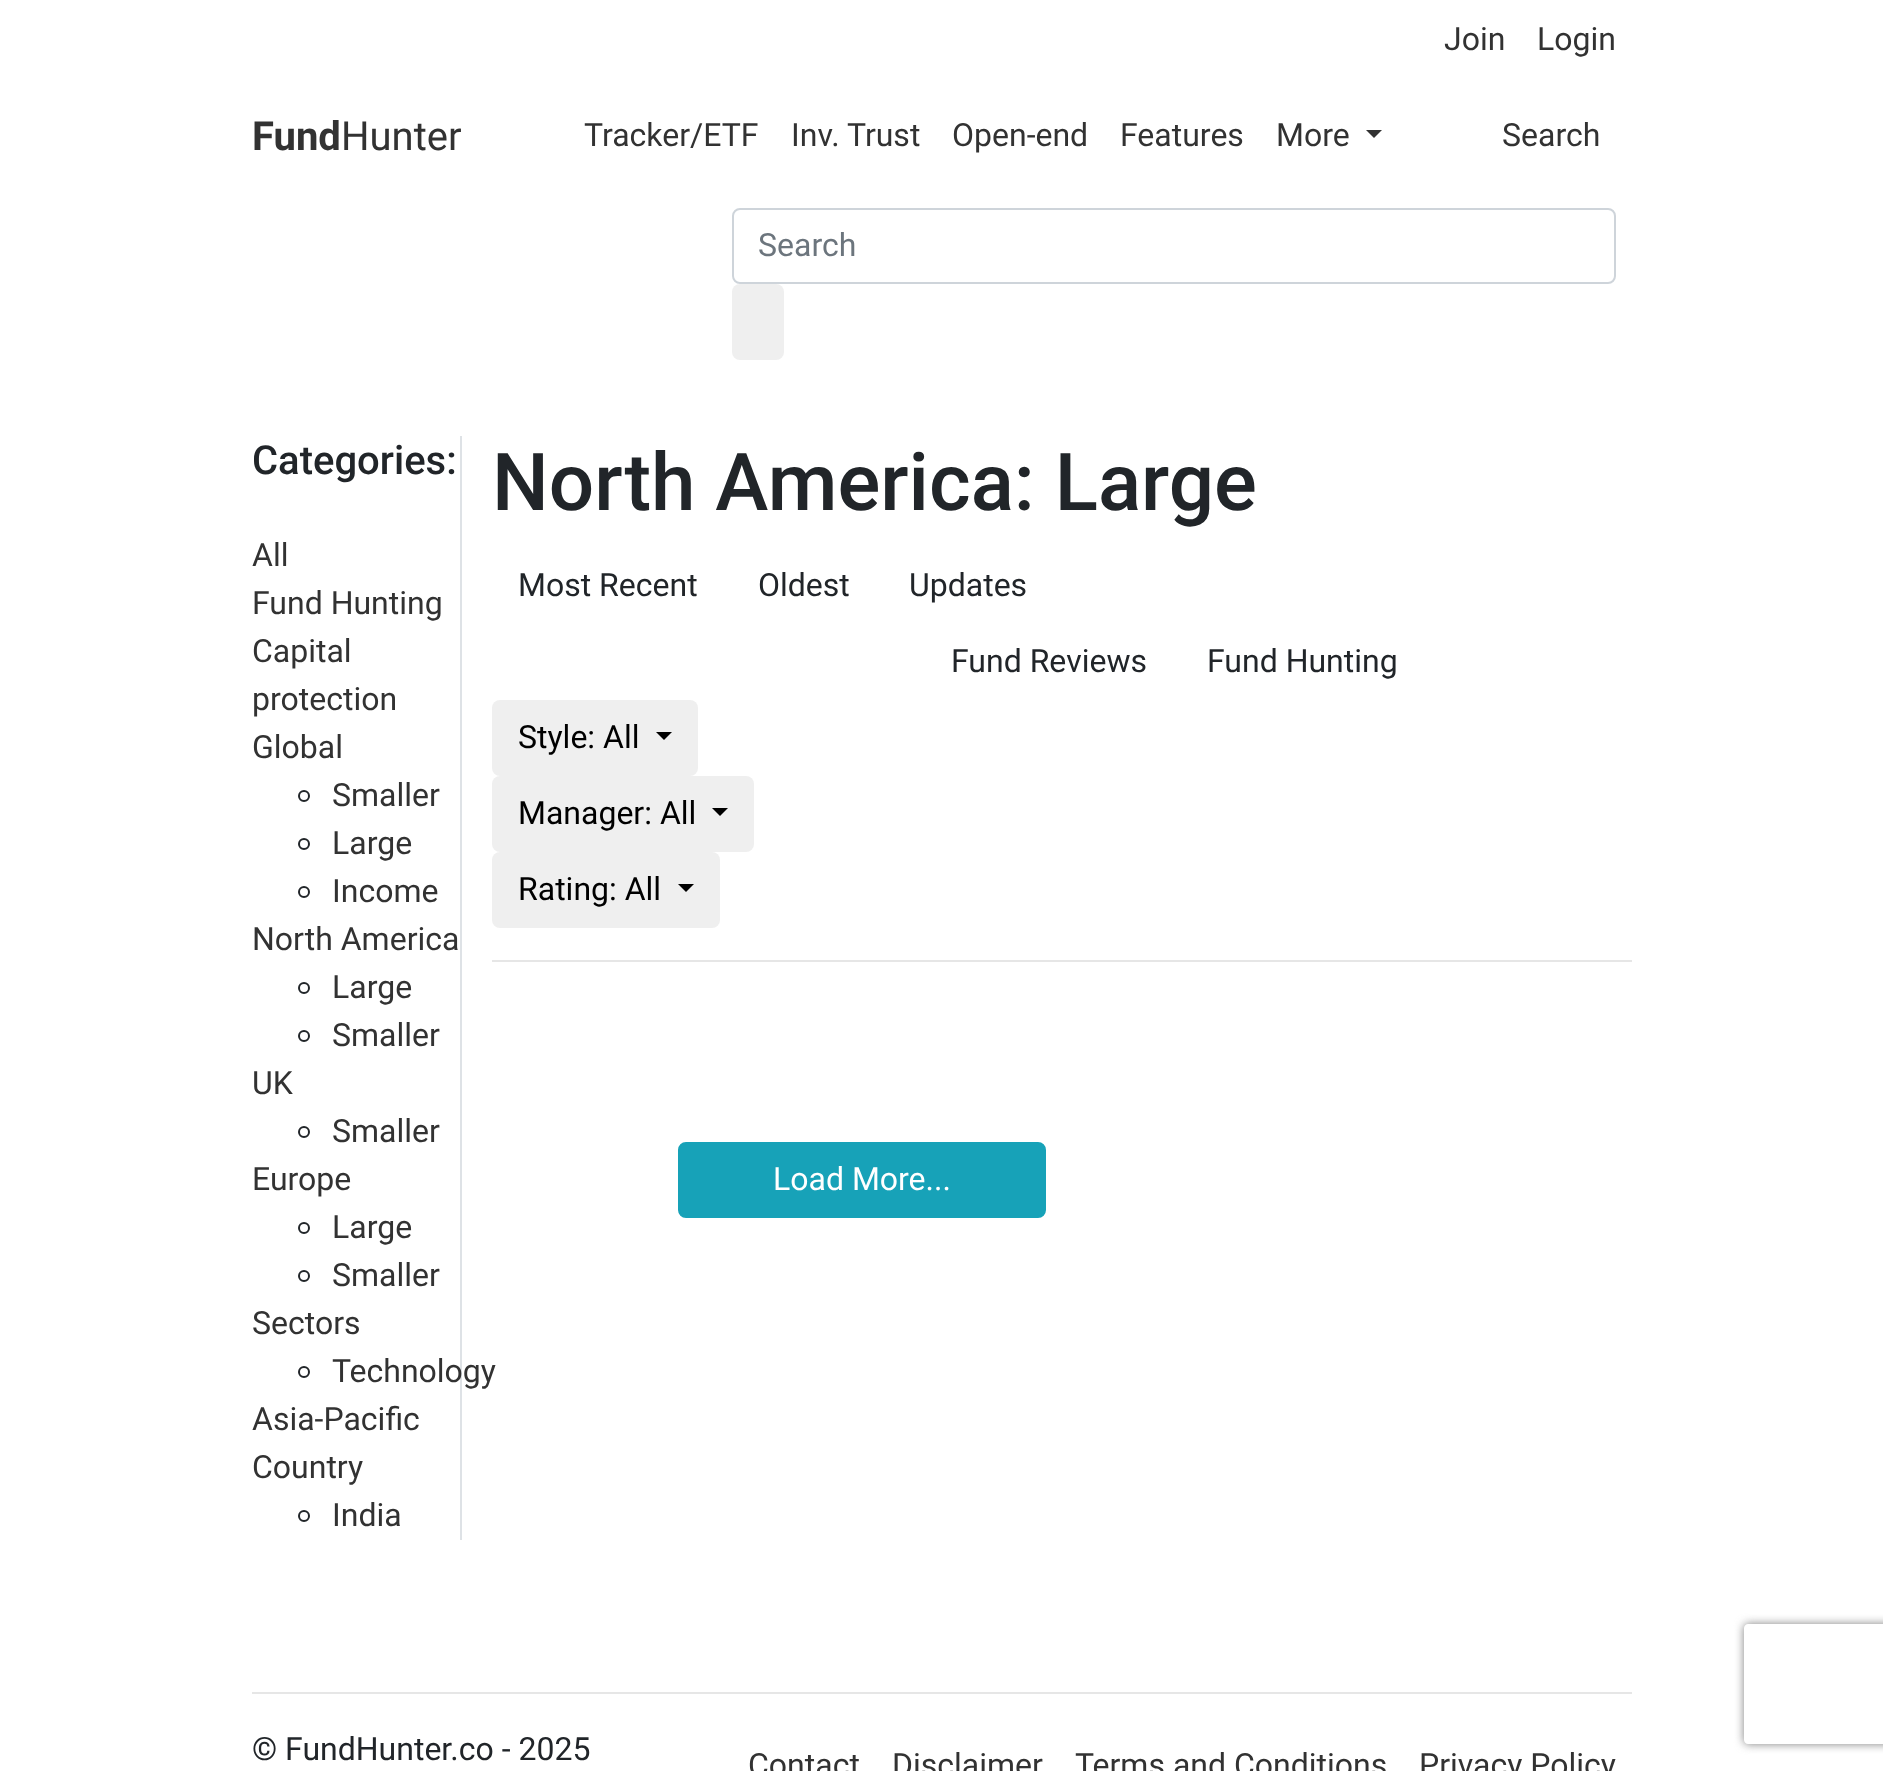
async function draw(canvas) {
  canvas.width = 1883;
  canvas.height = 1771;
  const ctx = canvas.getContext('2d');
  ctx.miterLimit = 4;
  ctx.fontKerning = 'normal';
  function label(s, x, y, font, color) {
    ctx.font = font;
    ctx.fillStyle = color;
    ctx.fillText(s, x, y);
  }
  function rect(x, y, w, h, color) {
    ctx.fillStyle = color;
    ctx.fillRect(x, y, w, h);
  }
  function roundedRect(x, y, w, h, r, color) {
    ctx.fillStyle = color;
    ctx.beginPath();
    ctx.roundRect(x, y, w, h, r);
    ctx.fill();
  }
  let path;

  rect(0, 0, 1883, 1771, '#fff');
  label('Join', 1444, 50, '32px Roboto', '#323232');
  label('Login', 1537, 50, '32px Roboto', '#323232');
  label('Fund', 252, 150, 'bold 40px Roboto', '#323232');
  label('Hunter', 341, 150, '40px Roboto', '#323232');
  label('Tracker/ETF', 584, 146, '32px Roboto', '#323232');
  label('Inv. Trust', 791, 146, '32px Roboto', '#323232');
  label('Open-end', 952, 146, '32px Roboto', '#323232');
  label('Features', 1120, 146, '32px Roboto', '#323232');
  label('More', 1276, 146, '32px Roboto', '#323232');
  path = new Path2D('M1366 130H1382L1374 138Z');
  ctx.fill(path);
  label('Search', 1502, 146, '32px Roboto', '#323232');
  ctx.beginPath();
  ctx.roundRect(733, 209, 882, 74, 7);
  ctx.strokeStyle = '#ced4da';
  ctx.lineWidth = 2;
  ctx.stroke();
  label('Search', 758, 256, '32px Roboto', '#6c757d');
  roundedRect(732, 284, 52, 76, 8, '#efefef');
  rect(460, 436, 2, 1104, '#dee2e6');
  label('Categories:', 252, 474, '500 40px Roboto', '#212529');
  label('All', 252, 566, '32px Roboto', '#323232');
  label('Fund Hunting', 252, 614, '32px Roboto', '#323232');
  label('Capital', 252, 662, '32px Roboto', '#323232');
  label('protection', 252, 710, '32px Roboto', '#323232');
  label('Global', 252, 758, '32px Roboto', '#323232');
  ctx.beginPath();
  ctx.arc(304, 796, 5, 0, 2 * Math.PI);
  ctx.strokeStyle = '#212529';
  ctx.stroke();
  label('Smaller', 332, 806, '32px Roboto', '#323232');
  ctx.beginPath();
  ctx.arc(304, 844, 5, 0, 2 * Math.PI);
  ctx.stroke();
  label('Large', 332, 854, '32px Roboto', '#323232');
  ctx.beginPath();
  ctx.arc(304, 892, 5, 0, 2 * Math.PI);
  ctx.stroke();
  label('Income', 332, 902, '32px Roboto', '#323232');
  label('North America', 252, 950, '32px Roboto', '#323232');
  ctx.beginPath();
  ctx.arc(304, 988, 5, 0, 2 * Math.PI);
  ctx.stroke();
  label('Large', 332, 998, '32px Roboto', '#323232');
  ctx.beginPath();
  ctx.arc(304, 1036, 5, 0, 2 * Math.PI);
  ctx.stroke();
  label('Smaller', 332, 1046, '32px Roboto', '#323232');
  label('UK', 252, 1094, '32px Roboto', '#323232');
  ctx.beginPath();
  ctx.arc(304, 1132, 5, 0, 2 * Math.PI);
  ctx.stroke();
  label('Smaller', 332, 1142, '32px Roboto', '#323232');
  label('Europe', 252, 1190, '32px Roboto', '#323232');
  ctx.beginPath();
  ctx.arc(304, 1228, 5, 0, 2 * Math.PI);
  ctx.stroke();
  label('Large', 332, 1238, '32px Roboto', '#323232');
  ctx.beginPath();
  ctx.arc(304, 1276, 5, 0, 2 * Math.PI);
  ctx.stroke();
  label('Smaller', 332, 1286, '32px Roboto', '#323232');
  label('Sectors', 252, 1334, '32px Roboto', '#323232');
  ctx.beginPath();
  ctx.arc(304, 1372, 5, 0, 2 * Math.PI);
  ctx.stroke();
  label('Technology', 332, 1382, '32px Roboto', '#323232');
  label('Asia-Pacific', 252, 1430, '32px Roboto', '#323232');
  label('Country', 252, 1478, '32px Roboto', '#323232');
  ctx.beginPath();
  ctx.arc(304, 1516, 5, 0, 2 * Math.PI);
  ctx.stroke();
  label('India', 332, 1526, '32px Roboto', '#323232');
  label('North America: Large', 492, 510, '500 80px Roboto', '#212529');
  label('Most Recent', 518, 596, '32px Roboto', '#212529');
  label('Oldest', 758, 596, '32px Roboto', '#212529');
  label('Updates', 909, 596, '32px Roboto', '#212529');
  label('Fund Reviews', 951, 672, '32px Roboto', '#212529');
  label('Fund Hunting', 1207, 672, '32px Roboto', '#212529');
  roundedRect(492, 700, 206, 76, 8, '#efefef');
  label('Style: All', 518, 748, '32px Roboto', '#000');
  path = new Path2D('M656 732H672L664 740Z');
  ctx.fill(path);
  roundedRect(492, 776, 262, 76, 8, '#efefef');
  label('Manager: All', 518, 824, '32px Roboto', '#000');
  path = new Path2D('M712 808H728L720 816Z');
  ctx.fill(path);
  roundedRect(492, 852, 228, 76, 8, '#efefef');
  label('Rating: All', 518, 900, '32px Roboto', '#000');
  path = new Path2D('M678 884H694L686 892Z');
  ctx.fill(path);
  rect(492, 960, 1140, 2, '#e6e6e6');
  ctx.fillStyle = '#17a2b8';
  ctx.beginPath();
  ctx.roundRect(679, 1143, 366, 74, 7);
  ctx.fill();
  ctx.strokeStyle = '#17a2b8';
  ctx.stroke();
  label('Load More...', 773, 1190, '32px Roboto', '#fff');
  rect(252, 1692, 1380, 2, '#e6e6e6');
  label('© FundHunter.co - 2025', 252, 1760, '32px Roboto', '#212529');
  label('Contact', 748, 1776, '32px Roboto', '#323232');
  label('Disclaimer', 892, 1776, '32px Roboto', '#323232');
  label('Terms and Conditions', 1075, 1776, '32px Roboto', '#323232');
  label('Privacy Policy', 1419, 1776, '32px Roboto', '#323232');
  ctx.save();
  path = new Path2D('M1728 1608H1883V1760H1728ZM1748 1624H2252C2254 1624 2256 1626 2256 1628V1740C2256 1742 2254 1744 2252 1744H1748C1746 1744 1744 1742 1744 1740V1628C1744 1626 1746 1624 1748 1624Z');
  ctx.clip(path, 'evenodd');
  ctx.fillStyle = '#808080';
  ctx.filter = 'blur(5px)';
  ctx.beginPath();
  ctx.roundRect(1744, 1624, 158, 120, 4);
  ctx.fill();
  ctx.filter = 'none';
  ctx.restore();
}

draw(document.querySelector('canvas'));
